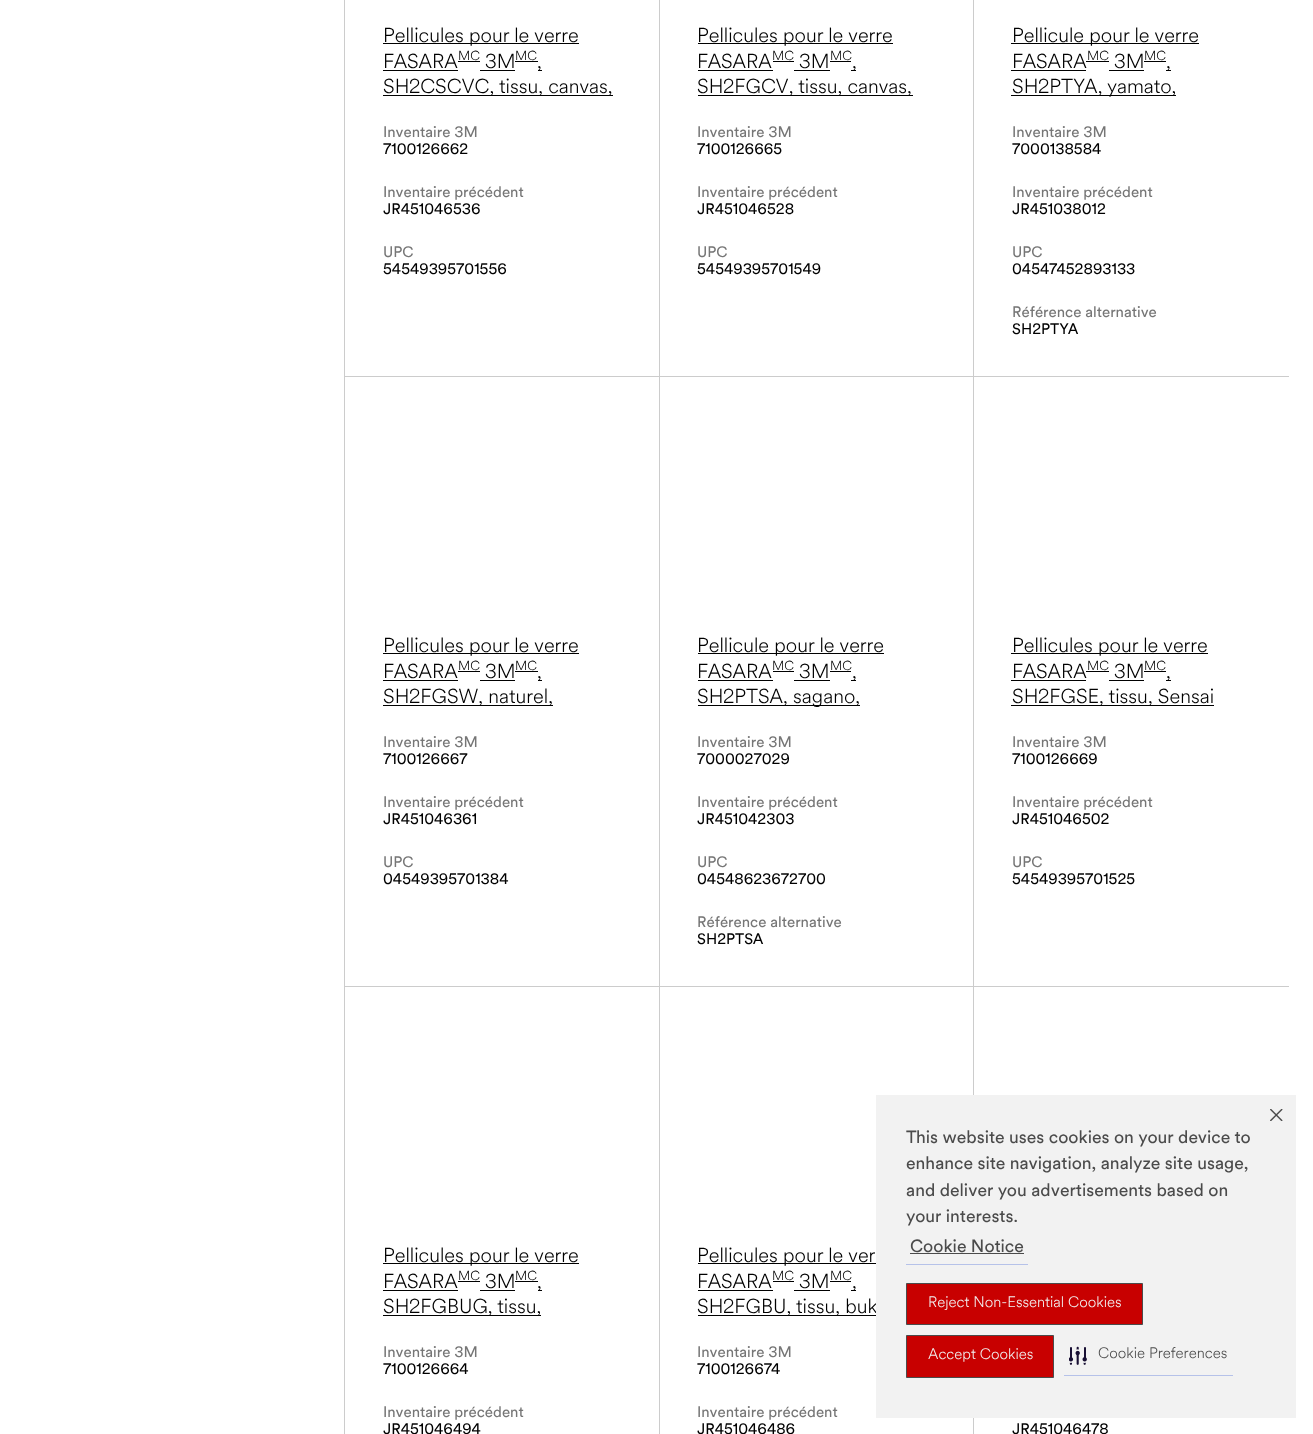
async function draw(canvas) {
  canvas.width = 1313;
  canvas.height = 1434;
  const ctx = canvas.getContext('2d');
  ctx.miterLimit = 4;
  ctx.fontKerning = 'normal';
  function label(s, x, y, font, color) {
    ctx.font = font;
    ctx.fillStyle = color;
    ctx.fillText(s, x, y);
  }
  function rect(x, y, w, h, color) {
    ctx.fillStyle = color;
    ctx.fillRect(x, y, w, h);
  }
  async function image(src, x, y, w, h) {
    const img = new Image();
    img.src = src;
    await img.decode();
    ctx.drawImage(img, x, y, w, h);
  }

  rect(0, 0, 1313, 1434, '#fff');
  rect(344, 0, 1, 1434, '#ccc');
  rect(659, 0, 1, 1434, '#ccc');
  rect(345, 376, 315, 1, '#ccc');
  rect(383, 43, 196, 1, '#000');
  label('Pellicules pour le verre', 383, 42, '300 20px "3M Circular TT"', '#000');
  label('FASARA', 383, 68, '300 20px "3M Circular TT"', '#000');
  rect(383, 70, 75, 1, '#000');
  label('MC', 458, 60, '300 13px "3M Circular TT"', '#000');
  rect(458, 61, 22, 1, '#000');
  label('3M', 485, 68, '300 20px "3M Circular TT"', '#000');
  rect(480, 70, 35, 1, '#000');
  label('MC', 515, 60, '300 13px "3M Circular TT"', '#000');
  rect(515, 61, 23, 1, '#000');
  rect(538, 70, 4, 1, '#000');
  label(',', 537, 68, '300 20px "3M Circular TT"', '#000');
  rect(383, 95, 230, 1, '#000');
  label('SH2CSCVC, tissu, canvas,', 383, 93, '300 20px "3M Circular TT"', '#000');
  label('Inventaire 3M', 383, 137, '15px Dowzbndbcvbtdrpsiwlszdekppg', '#767676');
  label('7100126662', 383, 154, '15px Dowzbndbcvbtdrpsiwlszdekppg', '#000');
  label('Inventaire précédent', 383, 197, '15px Dowzbndbcvbtdrpsiwlszdekppg', '#767676');
  label('JR451046536', 383, 214, '15px Dowzbndbcvbtdrpsiwlszdekppg', '#000');
  label('UPC', 383, 257, '15px Dowzbndbcvbtdrpsiwlszdekppg', '#767676');
  label('54549395701556', 383, 274, '15px Dowzbndbcvbtdrpsiwlszdekppg', '#000');
  rect(973, 0, 1, 1434, '#ccc');
  rect(660, 376, 629, 1, '#ccc');
  rect(698, 43, 195, 1, '#000');
  label('Pellicules pour le verre', 697, 42, '300 20px "3M Circular TT"', '#000');
  label('FASARA', 697, 68, '300 20px "3M Circular TT"', '#000');
  rect(698, 70, 75, 1, '#000');
  label('MC', 772, 60, '300 13px "3M Circular TT"', '#000');
  rect(773, 61, 21, 1, '#000');
  label('3M', 799, 68, '300 20px "3M Circular TT"', '#000');
  rect(794, 70, 36, 1, '#000');
  label('MC', 830, 60, '300 13px "3M Circular TT"', '#000');
  rect(830, 61, 21, 1, '#000');
  rect(851, 70, 5, 1, '#000');
  label(',', 852, 68, '300 20px "3M Circular TT"', '#000');
  rect(698, 95, 215, 1, '#000');
  label('SH2FGCV, tissu, canvas,', 697, 93, '300 20px "3M Circular TT"', '#000');
  label('Inventaire 3M', 697, 137, '15px Dowzbndbcvbtdrpsiwlszdekppg', '#767676');
  label('7100126665', 697, 154, '15px Dowzbndbcvbtdrpsiwlszdekppg', '#000');
  label('Inventaire précédent', 697, 197, '15px Dowzbndbcvbtdrpsiwlszdekppg', '#767676');
  label('JR451046528', 697, 214, '15px Dowzbndbcvbtdrpsiwlszdekppg', '#000');
  label('UPC', 697, 257, '15px Dowzbndbcvbtdrpsiwlszdekppg', '#767676');
  label('54549395701549', 697, 274, '15px Dowzbndbcvbtdrpsiwlszdekppg', '#000');
  rect(1011, 43, 188, 1, '#000');
  label('Pellicule pour le verre', 1012, 42, '300 20px "3M Circular TT"', '#000');
  label('FASARA', 1012, 68, '300 20px "3M Circular TT"', '#000');
  rect(1011, 70, 75, 1, '#000');
  label('MC', 1087, 60, '300 13px "3M Circular TT"', '#000');
  rect(1086, 61, 23, 1, '#000');
  label('3M', 1114, 68, '300 20px "3M Circular TT"', '#000');
  rect(1109, 70, 35, 1, '#000');
  label('MC', 1144, 60, '300 13px "3M Circular TT"', '#000');
  rect(1144, 61, 22, 1, '#000');
  rect(1166, 70, 5, 1, '#000');
  label(',', 1166, 68, '300 20px "3M Circular TT"', '#000');
  rect(1011, 95, 165, 1, '#000');
  label('SH2PTYA, yamato,', 1012, 93, '300 20px "3M Circular TT"', '#000');
  label('Inventaire 3M', 1012, 137, '15px Dowzbndbcvbtdrpsiwlszdekppg', '#767676');
  label('7000138584', 1012, 154, '15px Dowzbndbcvbtdrpsiwlszdekppg', '#000');
  label('Inventaire précédent', 1012, 197, '15px Dowzbndbcvbtdrpsiwlszdekppg', '#767676');
  label('JR451038012', 1012, 214, '15px Dowzbndbcvbtdrpsiwlszdekppg', '#000');
  label('UPC', 1012, 257, '15px Dowzbndbcvbtdrpsiwlszdekppg', '#767676');
  label('04547452893133', 1012, 274, '15px Dowzbndbcvbtdrpsiwlszdekppg', '#000');
  label('Référence alternative', 1012, 317, '15px Dowzbndbcvbtdrpsiwlszdekppg', '#767676');
  label('SH2PTYA', 1012, 334, '15px Dowzbndbcvbtdrpsiwlszdekppg', '#000');
  rect(345, 986, 944, 1, '#ccc');
  rect(383, 653, 196, 1, '#000');
  label('Pellicules pour le verre', 383, 652, '300 20px "3M Circular TT"', '#000');
  label('FASARA', 383, 678, '300 20px "3M Circular TT"', '#000');
  rect(383, 680, 75, 1, '#000');
  label('MC', 458, 670, '300 13px "3M Circular TT"', '#000');
  rect(458, 671, 22, 1, '#000');
  label('3M', 485, 678, '300 20px "3M Circular TT"', '#000');
  rect(480, 680, 35, 1, '#000');
  label('MC', 515, 670, '300 13px "3M Circular TT"', '#000');
  rect(515, 671, 23, 1, '#000');
  rect(538, 680, 4, 1, '#000');
  label(',', 537, 678, '300 20px "3M Circular TT"', '#000');
  rect(383, 705, 170, 1, '#000');
  label('SH2FGSW, naturel,', 383, 703, '300 20px "3M Circular TT"', '#000');
  label('Inventaire 3M', 383, 747, '15px Dowzbndbcvbtdrpsiwlszdekppg', '#767676');
  label('7100126667', 383, 764, '15px Dowzbndbcvbtdrpsiwlszdekppg', '#000');
  label('Inventaire précédent', 383, 807, '15px Dowzbndbcvbtdrpsiwlszdekppg', '#767676');
  label('JR451046361', 383, 824, '15px Dowzbndbcvbtdrpsiwlszdekppg', '#000');
  label('UPC', 383, 867, '15px Dowzbndbcvbtdrpsiwlszdekppg', '#767676');
  label('04549395701384', 383, 884, '15px Dowzbndbcvbtdrpsiwlszdekppg', '#000');
  rect(698, 653, 186, 1, '#000');
  label('Pellicule pour le verre', 697, 652, '300 20px "3M Circular TT"', '#000');
  label('FASARA', 697, 678, '300 20px "3M Circular TT"', '#000');
  rect(698, 680, 75, 1, '#000');
  label('MC', 772, 670, '300 13px "3M Circular TT"', '#000');
  rect(773, 671, 21, 1, '#000');
  label('3M', 799, 678, '300 20px "3M Circular TT"', '#000');
  rect(794, 680, 36, 1, '#000');
  label('MC', 830, 670, '300 13px "3M Circular TT"', '#000');
  rect(830, 671, 21, 1, '#000');
  rect(851, 680, 5, 1, '#000');
  label(',', 852, 678, '300 20px "3M Circular TT"', '#000');
  rect(698, 705, 162, 1, '#000');
  label('SH2PTSA, sagano,', 697, 703, '300 20px "3M Circular TT"', '#000');
  label('Inventaire 3M', 697, 747, '15px Dowzbndbcvbtdrpsiwlszdekppg', '#767676');
  label('7000027029', 697, 764, '15px Dowzbndbcvbtdrpsiwlszdekppg', '#000');
  label('Inventaire précédent', 697, 807, '15px Dowzbndbcvbtdrpsiwlszdekppg', '#767676');
  label('JR451042303', 697, 824, '15px Dowzbndbcvbtdrpsiwlszdekppg', '#000');
  label('UPC', 697, 867, '15px Dowzbndbcvbtdrpsiwlszdekppg', '#767676');
  label('04548623672700', 697, 884, '15px Dowzbndbcvbtdrpsiwlszdekppg', '#000');
  label('Référence alternative', 697, 927, '15px Dowzbndbcvbtdrpsiwlszdekppg', '#767676');
  label('SH2PTSA', 697, 944, '15px Dowzbndbcvbtdrpsiwlszdekppg', '#000');
  rect(1011, 653, 197, 1, '#000');
  label('Pellicules pour le verre', 1012, 652, '300 20px "3M Circular TT"', '#000');
  label('FASARA', 1012, 678, '300 20px "3M Circular TT"', '#000');
  rect(1011, 680, 75, 1, '#000');
  label('MC', 1087, 670, '300 13px "3M Circular TT"', '#000');
  rect(1086, 671, 23, 1, '#000');
  label('3M', 1114, 678, '300 20px "3M Circular TT"', '#000');
  rect(1109, 680, 35, 1, '#000');
  label('MC', 1144, 670, '300 13px "3M Circular TT"', '#000');
  rect(1144, 671, 22, 1, '#000');
  rect(1166, 680, 5, 1, '#000');
  label(',', 1166, 678, '300 20px "3M Circular TT"', '#000');
  rect(1011, 705, 203, 1, '#000');
  label('SH2FGSE, tissu, Sensai', 1012, 703, '300 20px "3M Circular TT"', '#000');
  label('Inventaire 3M', 1012, 747, '15px Dowzbndbcvbtdrpsiwlszdekppg', '#767676');
  label('7100126669', 1012, 764, '15px Dowzbndbcvbtdrpsiwlszdekppg', '#000');
  label('Inventaire précédent', 1012, 807, '15px Dowzbndbcvbtdrpsiwlszdekppg', '#767676');
  label('JR451046502', 1012, 824, '15px Dowzbndbcvbtdrpsiwlszdekppg', '#000');
  label('UPC', 1012, 867, '15px Dowzbndbcvbtdrpsiwlszdekppg', '#767676');
  label('54549395701525', 1012, 884, '15px Dowzbndbcvbtdrpsiwlszdekppg', '#000');
  rect(383, 1263, 196, 1, '#000');
  label('Pellicules pour le verre', 383, 1262, '300 20px "3M Circular TT"', '#000');
  label('FASARA', 383, 1288, '300 20px "3M Circular TT"', '#000');
  rect(383, 1290, 75, 1, '#000');
  label('MC', 458, 1280, '300 13px "3M Circular TT"', '#000');
  rect(458, 1281, 22, 1, '#000');
  label('3M', 485, 1288, '300 20px "3M Circular TT"', '#000');
  rect(480, 1290, 35, 1, '#000');
  label('MC', 515, 1280, '300 13px "3M Circular TT"', '#000');
  rect(515, 1281, 23, 1, '#000');
  rect(538, 1290, 4, 1, '#000');
  label(',', 537, 1288, '300 20px "3M Circular TT"', '#000');
  rect(383, 1315, 158, 1, '#000');
  label('SH2FGBUG, tissu,', 383, 1313, '300 20px "3M Circular TT"', '#000');
  label('Inventaire 3M', 383, 1357, '15px Dowzbndbcvbtdrpsiwlszdekppg', '#767676');
  label('7100126664', 383, 1374, '15px Dowzbndbcvbtdrpsiwlszdekppg', '#000');
  label('Inventaire précédent', 383, 1417, '15px Dowzbndbcvbtdrpsiwlszdekppg', '#767676');
  label('JR451046494', 383, 1434, '15px Dowzbndbcvbtdrpsiwlszdekppg', '#000');
  rect(698, 1263, 178, 1, '#000');
  label('Pellicules pour le ver', 697, 1262, '300 20px "3M Circular TT"', '#000');
  label('FASARA', 697, 1288, '300 20px "3M Circular TT"', '#000');
  rect(698, 1290, 75, 1, '#000');
  label('MC', 772, 1280, '300 13px "3M Circular TT"', '#000');
  rect(773, 1281, 21, 1, '#000');
  label('3M', 799, 1288, '300 20px "3M Circular TT"', '#000');
  rect(794, 1290, 36, 1, '#000');
  label('MC', 830, 1280, '300 13px "3M Circular TT"', '#000');
  rect(830, 1281, 21, 1, '#000');
  rect(851, 1290, 5, 1, '#000');
  label(',', 852, 1288, '300 20px "3M Circular TT"', '#000');
  rect(698, 1315, 178, 1, '#000');
  label('SH2FGBU, tissu, buk', 697, 1313, '300 20px "3M Circular TT"', '#000');
  label('Inventaire 3M', 697, 1357, '15px Dowzbndbcvbtdrpsiwlszdekppg', '#767676');
  label('7100126674', 697, 1374, '15px Dowzbndbcvbtdrpsiwlszdekppg', '#000');
  label('Inventaire précédent', 697, 1417, '15px Dowzbndbcvbtdrpsiwlszdekppg', '#767676');
  label('JR451046486', 697, 1434, '15px Dowzbndbcvbtdrpsiwlszdekppg', '#000');
  label('JR451046478', 1012, 1434, '15px Dowzbndbcvbtdrpsiwlszdekppg', '#000');
  rect(876, 1095, 420, 323, '#f2f2f2');
  label('This website uses cookies on your device to', 906, 1143, '17.5px Dowzbndbcvbtdrpsiwlszdekppg', '#4b4b4b');
  label('enhance site navigation, analyze site usage,', 906, 1169, '17.5px Dowzbndbcvbtdrpsiwlszdekppg', '#4b4b4b');
  label('and deliver you advertisements based on', 906, 1196, '17.5px Dowzbndbcvbtdrpsiwlszdekppg', '#4b4b4b');
  label('your interests.', 906, 1222, '17.5px Dowzbndbcvbtdrpsiwlszdekppg', '#4b4b4b');
  rect(906, 1264, 122, 1, '#b6c2e9');
  label('Cookie Notice', 910, 1252, '17.5px Dowzbndbcvbtdrpsiwlszdekppg', '#4b4b4b');
  rect(910, 1253, 114, 1, '#4b4b4b');
  await image('assets/img1.png', 1270, 1109, 13, 12);
  ctx.fillStyle = '#c80000';
  ctx.beginPath();
  ctx.rect(906.5, 1283.5, 236, 41);
  ctx.fill();
  ctx.strokeStyle = '#4b4b4b';
  ctx.stroke();
  label('Reject Non-Essential Cookies', 928, 1307, '300 15px "3M Circular TT"', '#f2f2f2');
  ctx.fillStyle = '#c80000';
  ctx.beginPath();
  ctx.rect(906.5, 1335.5, 147, 42);
  ctx.fill();
  ctx.stroke();
  label('Accept Cookies', 928, 1359, '300 15px "3M Circular TT"', '#f2f2f2');
  rect(1064, 1375, 169, 1, '#b6c2e9');
  await image('assets/img2.png', 1069, 1346, 18, 19);
  label('Cookie Preferences', 1098, 1358, '300 15px "3M Circular TT"', '#4b4b4b');
}

draw(document.querySelector('canvas'));
